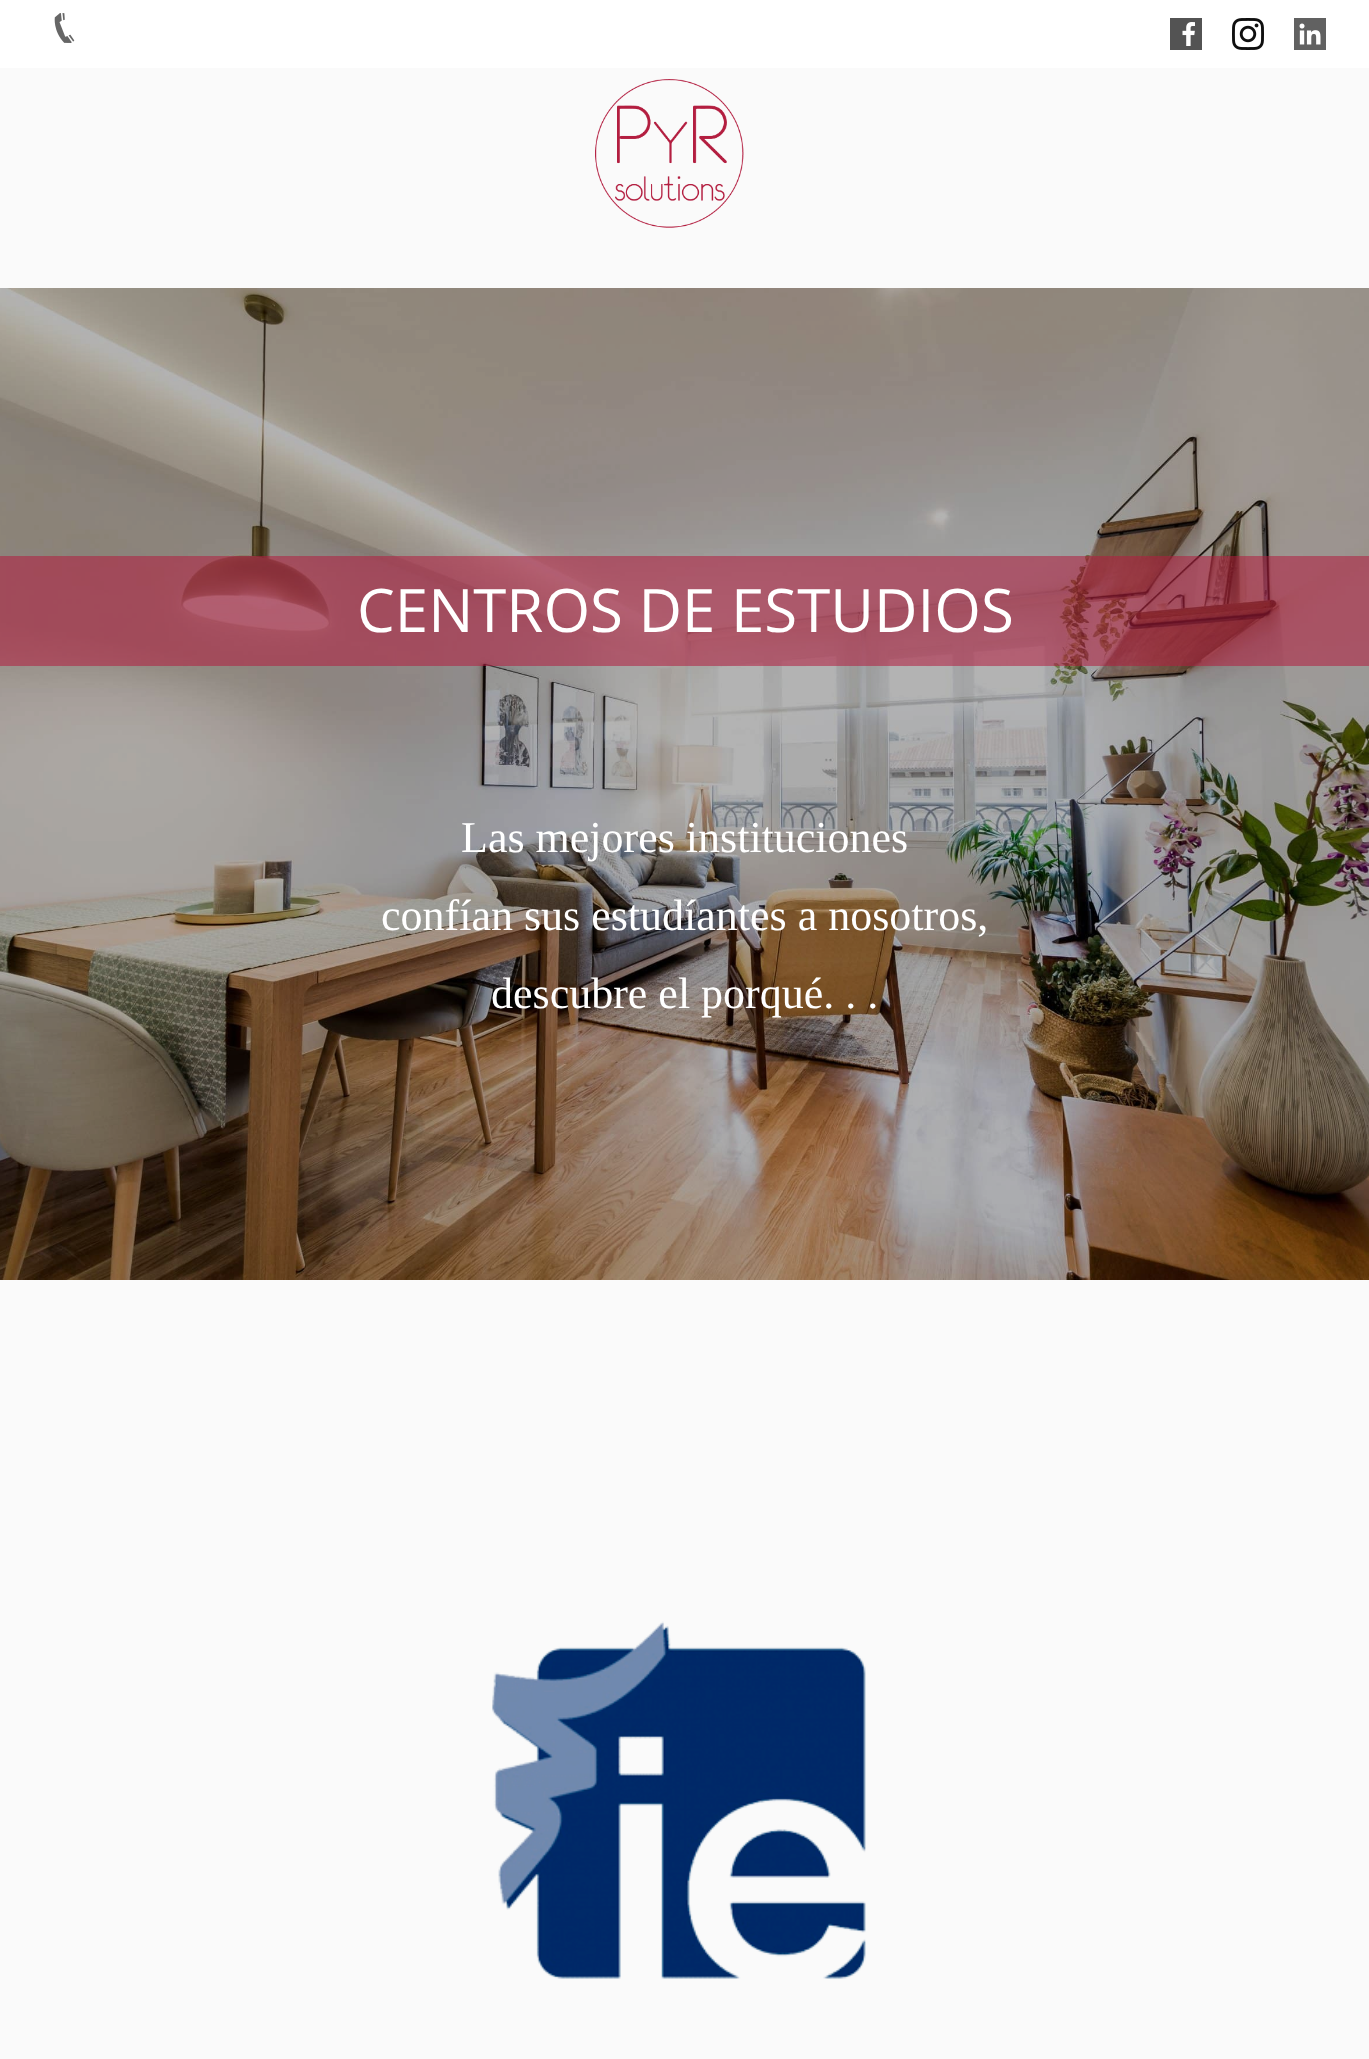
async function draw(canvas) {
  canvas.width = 1369;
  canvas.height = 2059;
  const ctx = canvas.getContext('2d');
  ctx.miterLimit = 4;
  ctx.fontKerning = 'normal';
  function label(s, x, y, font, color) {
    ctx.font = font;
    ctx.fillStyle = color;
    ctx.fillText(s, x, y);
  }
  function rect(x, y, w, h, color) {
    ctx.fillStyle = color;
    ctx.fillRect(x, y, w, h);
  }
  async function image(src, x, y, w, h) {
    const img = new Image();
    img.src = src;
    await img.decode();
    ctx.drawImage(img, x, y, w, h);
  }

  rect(0, 0, 1369, 2059, '#fafafa');
  rect(0, 0, 1369, 68, '#fff');
  await image('assets/img1.png', 54, 13, 21, 30);
  await image('assets/img2.png', 1170, 18, 32, 32);
  await image('assets/img3.png', 1232, 18, 32, 32);
  await image('assets/img4.png', 1294, 18, 32, 32);
  await image('assets/img5.png', 595, 79, 149, 149);
  await image('assets/img6.png', 0, 288, 1369, 992);
  rect(0, 556, 1369, 110, '#b21f418f');
  label('CENTROS DE ESTUDIOS', 357, 632, '60px Open Sans', '#fff');
  label('Las mejores instituciones', 461, 852, '44px Liberation Serif', '#fff');
  label('confían sus estudíantes a nosotros,', 381, 930, '44px Liberation Serif', '#fff');
  label('descubre el porqué. . .', 491, 1008, '44px Liberation Serif', '#fff');
  await image('assets/img7.png', 492, 1621, 374, 358);
}

draw(document.querySelector('canvas'));
